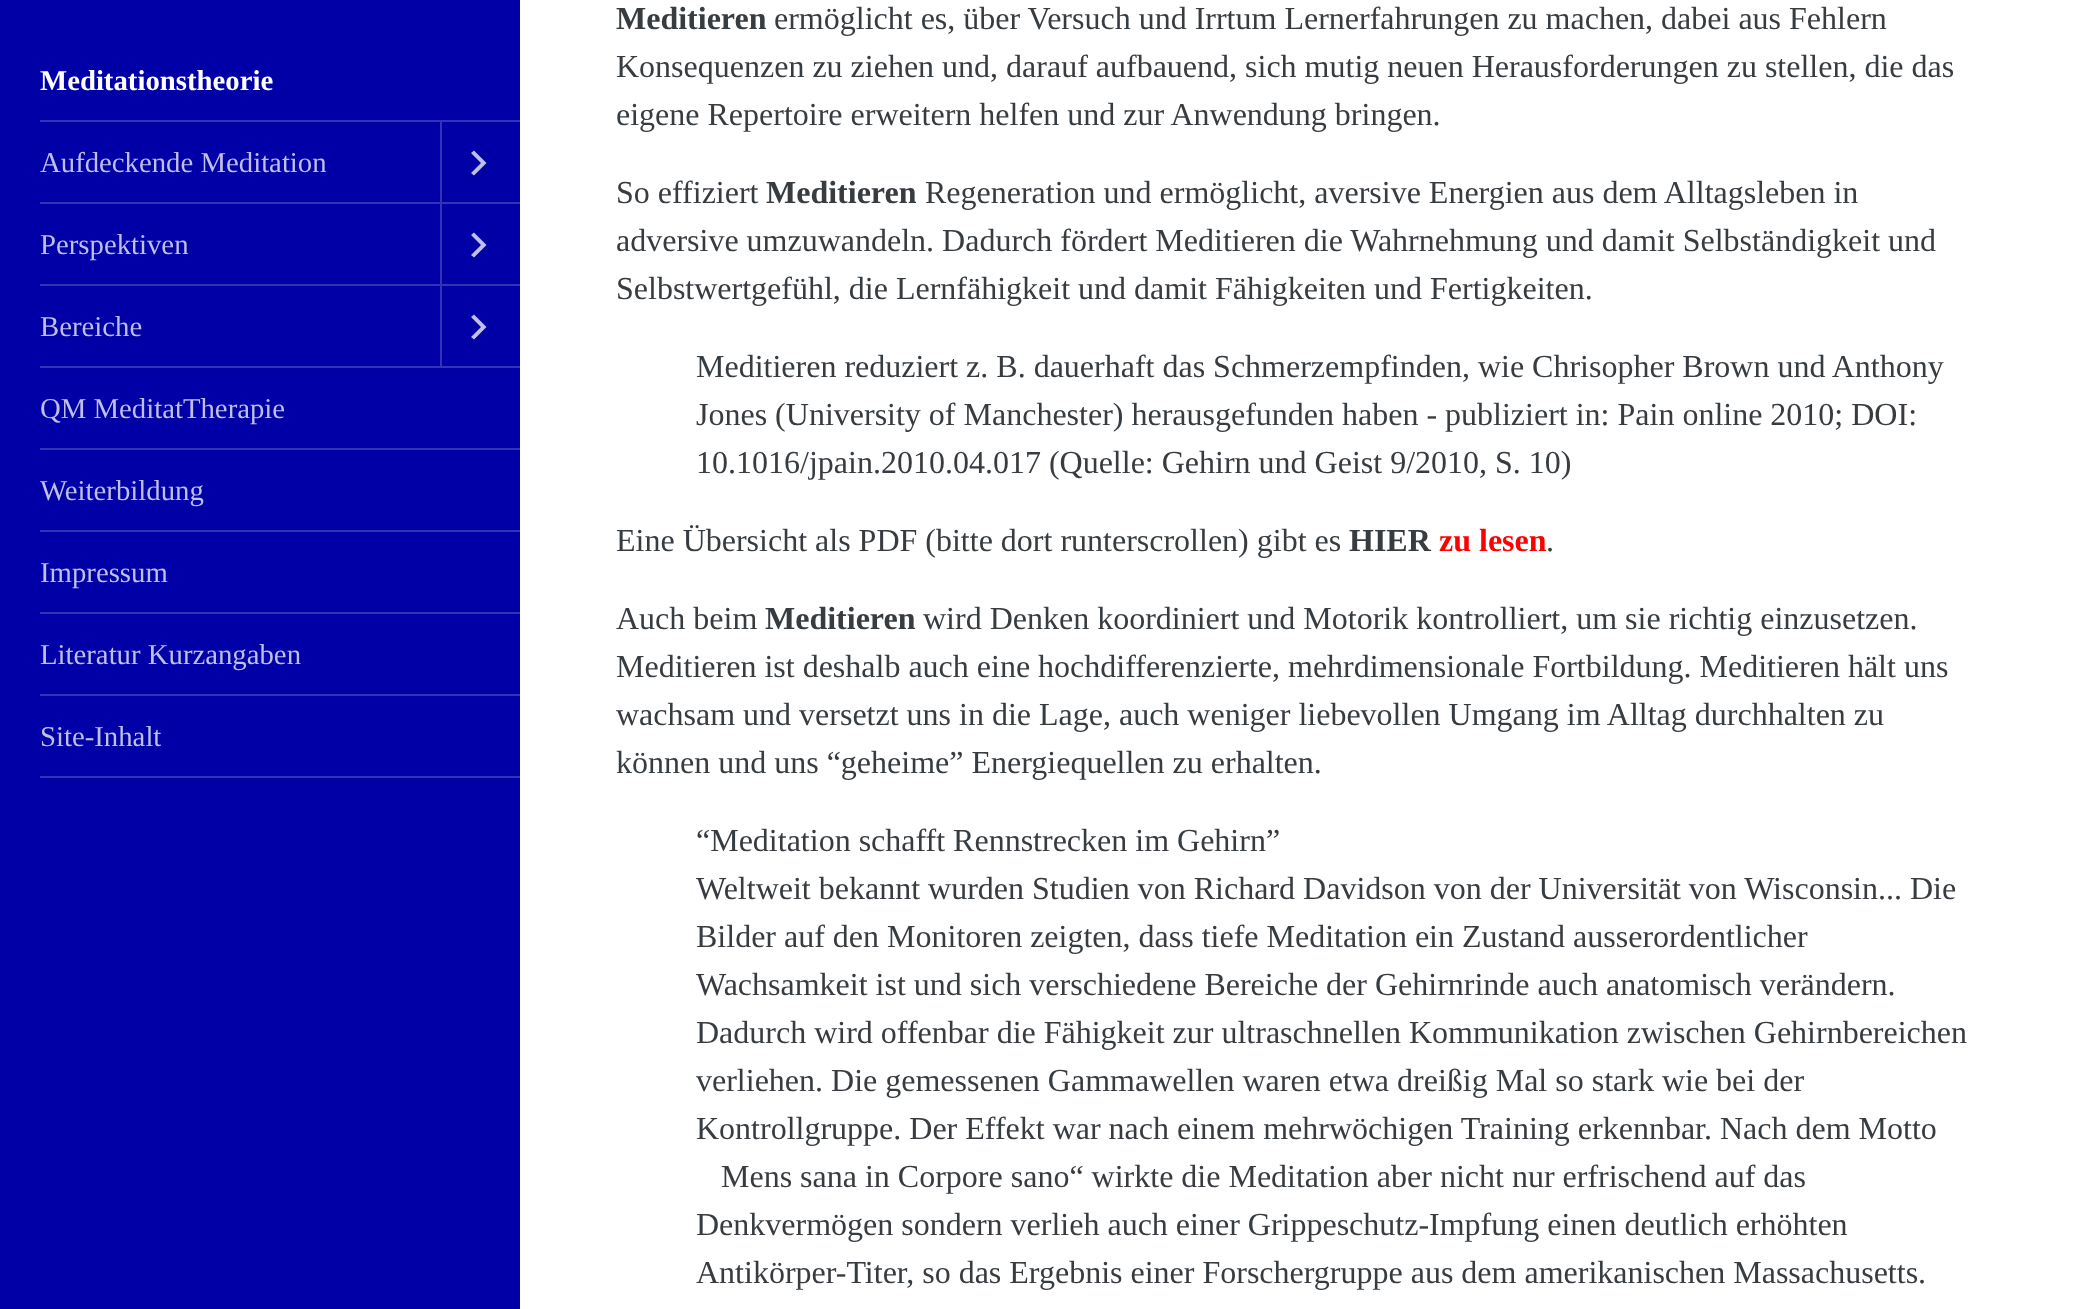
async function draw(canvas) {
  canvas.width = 2076;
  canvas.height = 1309;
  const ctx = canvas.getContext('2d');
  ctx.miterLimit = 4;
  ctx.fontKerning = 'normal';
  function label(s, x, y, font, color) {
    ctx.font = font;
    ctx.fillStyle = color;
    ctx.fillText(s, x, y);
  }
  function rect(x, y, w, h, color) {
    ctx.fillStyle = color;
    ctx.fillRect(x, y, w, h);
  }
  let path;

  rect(0, 0, 2076, 1309, '#fff');
  rect(0, 0, 520, 1309, '#0000a6');
  label('Meditationstheorie', 40, 90, 'bold 28.75px Liberation Serif', '#fff');
  rect(40, 120, 480, 2, '#3333b8');
  label('Aufdeckende Meditation', 40, 172, '28.75px Liberation Serif', '#bfbfe9');
  rect(440, 122, 2, 80, '#3333b8');
  ctx.fillStyle = '#bfbfe9';
  path = new Path2D('M474 150.5L486.5 163H481L471 153ZM486.5 163L474 175.5L471 173L481 163Z');
  ctx.fill(path);
  rect(40, 202, 480, 2, '#3333b8');
  label('Perspektiven', 40, 254, '28.75px Liberation Serif', '#bfbfe9');
  rect(440, 204, 2, 80, '#3333b8');
  ctx.fillStyle = '#bfbfe9';
  path = new Path2D('M474 232.5L486.5 245H481L471 235ZM486.5 245L474 257.5L471 255L481 245Z');
  ctx.fill(path);
  rect(40, 284, 480, 2, '#3333b8');
  label('Bereiche', 40, 336, '28.75px Liberation Serif', '#bfbfe9');
  rect(440, 286, 2, 80, '#3333b8');
  ctx.fillStyle = '#bfbfe9';
  path = new Path2D('M474 314.5L486.5 327H481L471 317ZM486.5 327L474 339.5L471 337L481 327Z');
  ctx.fill(path);
  rect(40, 366, 480, 2, '#3333b8');
  label('QM MeditatTherapie', 40, 418, '28.75px Liberation Serif', '#bfbfe9');
  rect(40, 448, 480, 2, '#3333b8');
  label('Weiterbildung', 40, 500, '28.75px Liberation Serif', '#bfbfe9');
  rect(40, 530, 480, 2, '#3333b8');
  label('Impressum', 40, 582, '28.75px Liberation Serif', '#bfbfe9');
  rect(40, 612, 480, 2, '#3333b8');
  label('Literatur Kurzangaben', 40, 664, '28.75px Liberation Serif', '#bfbfe9');
  rect(40, 694, 480, 2, '#3333b8');
  label('Site-Inhalt', 40, 746, '28.75px Liberation Serif', '#bfbfe9');
  rect(40, 776, 480, 2, '#3333b8');
  label('Meditieren', 616, 29, 'bold 32px Liberation Serif', '#373c41');
  label('ermöglicht es, über Versuch und Irrtum Lernerfahrungen zu machen, dabei aus Fehlern', 774, 29, '32px Liberation Serif', '#373c41');
  label('Konsequenzen zu ziehen und, darauf aufbauend, sich mutig neuen Herausforderungen zu stellen, die das', 616, 77, '32px Liberation Serif', '#373c41');
  label('eigene Repertoire erweitern helfen und zur Anwendung bringen.', 616, 125, '32px Liberation Serif', '#373c41');
  label('So effiziert', 616, 203, '32px Liberation Serif', '#373c41');
  label('Meditieren', 766, 203, 'bold 32px Liberation Serif', '#373c41');
  label('Regeneration und ermöglicht, aversive Energien aus dem Alltagsleben in', 925, 203, '32px Liberation Serif', '#373c41');
  label('adversive umzuwandeln. Dadurch fördert Meditieren die Wahrnehmung und damit Selbständigkeit und', 616, 251, '32px Liberation Serif', '#373c41');
  label('Selbstwertgefühl, die Lernfähigkeit und damit Fähigkeiten und Fertigkeiten.', 616, 299, '32px Liberation Serif', '#373c41');
  label('Meditieren reduziert z. B. dauerhaft das Schmerzempfinden, wie Chrisopher Brown und Anthony', 696, 377, '32px Liberation Serif', '#373c41');
  label('Jones (University of Manchester) herausgefunden haben - publiziert in: Pain online 2010; DOI:', 696, 425, '32px Liberation Serif', '#373c41');
  label('10.1016/jpain.2010.04.017 (Quelle: Gehirn und Geist 9/2010, S. 10)', 696, 473, '32px Liberation Serif', '#373c41');
  label('Eine Übersicht als PDF (bitte dort runterscrollen) gibt es', 616, 551, '32px Liberation Serif', '#373c41');
  label('HIER', 1349, 551, 'bold 32px Liberation Serif', '#373c41');
  label('zu lesen', 1439, 551, 'bold 32px Liberation Serif', '#f00');
  label('.', 1546, 551, '32px Liberation Serif', '#373c41');
  label('Auch beim', 616, 629, '32px Liberation Serif', '#373c41');
  label('Meditieren', 765, 629, 'bold 32px Liberation Serif', '#373c41');
  label('wird Denken koordiniert und Motorik kontrolliert, um sie richtig einzusetzen.', 923, 629, '32px Liberation Serif', '#373c41');
  label('Meditieren ist deshalb auch eine hochdifferenzierte, mehrdimensionale Fortbildung. Meditieren hält uns', 616, 677, '32px Liberation Serif', '#373c41');
  label('wachsam und versetzt uns in die Lage, auch weniger liebevollen Umgang im Alltag durchhalten zu', 616, 725, '32px Liberation Serif', '#373c41');
  label('können und uns “geheime” Energiequellen zu erhalten.', 616, 773, '32px Liberation Serif', '#373c41');
  label('“Meditation schafft Rennstrecken im Gehirn”', 696, 851, '32px Liberation Serif', '#373c41');
  label('Weltweit bekannt wurden Studien von Richard Davidson von der Universität von Wisconsin... Die', 696, 899, '32px Liberation Serif', '#373c41');
  label('Bilder auf den Monitoren zeigten, dass tiefe Meditation ein Zustand ausserordentlicher', 696, 947, '32px Liberation Serif', '#373c41');
  label('Wachsamkeit ist und sich verschiedene Bereiche der Gehirnrinde auch anatomisch verändern.', 696, 995, '32px Liberation Serif', '#373c41');
  label('Dadurch wird offenbar die Fähigkeit zur ultraschnellen Kommunikation zwischen Gehirnbereichen', 696, 1043, '32px Liberation Serif', '#373c41');
  label('verliehen. Die gemessenen Gammawellen waren etwa dreißig Mal so stark wie bei der', 696, 1091, '32px Liberation Serif', '#373c41');
  label('Kontrollgruppe. Der Effekt war nach einem mehrwöchigen Training erkennbar. Nach dem Motto', 696, 1139, '32px Liberation Serif', '#373c41');
  label('Mens sana in Corpore sano“ wirkte die Meditation aber nicht nur erfrischend auf das', 721, 1187, '32px Liberation Serif', '#373c41');
  label('Denkvermögen sondern verlieh auch einer Grippeschutz-Impfung einen deutlich erhöhten', 696, 1235, '32px Liberation Serif', '#373c41');
  label('Antikörper-Titer, so das Ergebnis einer Forschergruppe aus dem amerikanischen Massachusetts.', 696, 1283, '32px Liberation Serif', '#373c41');
}

draw(document.querySelector('canvas'));
